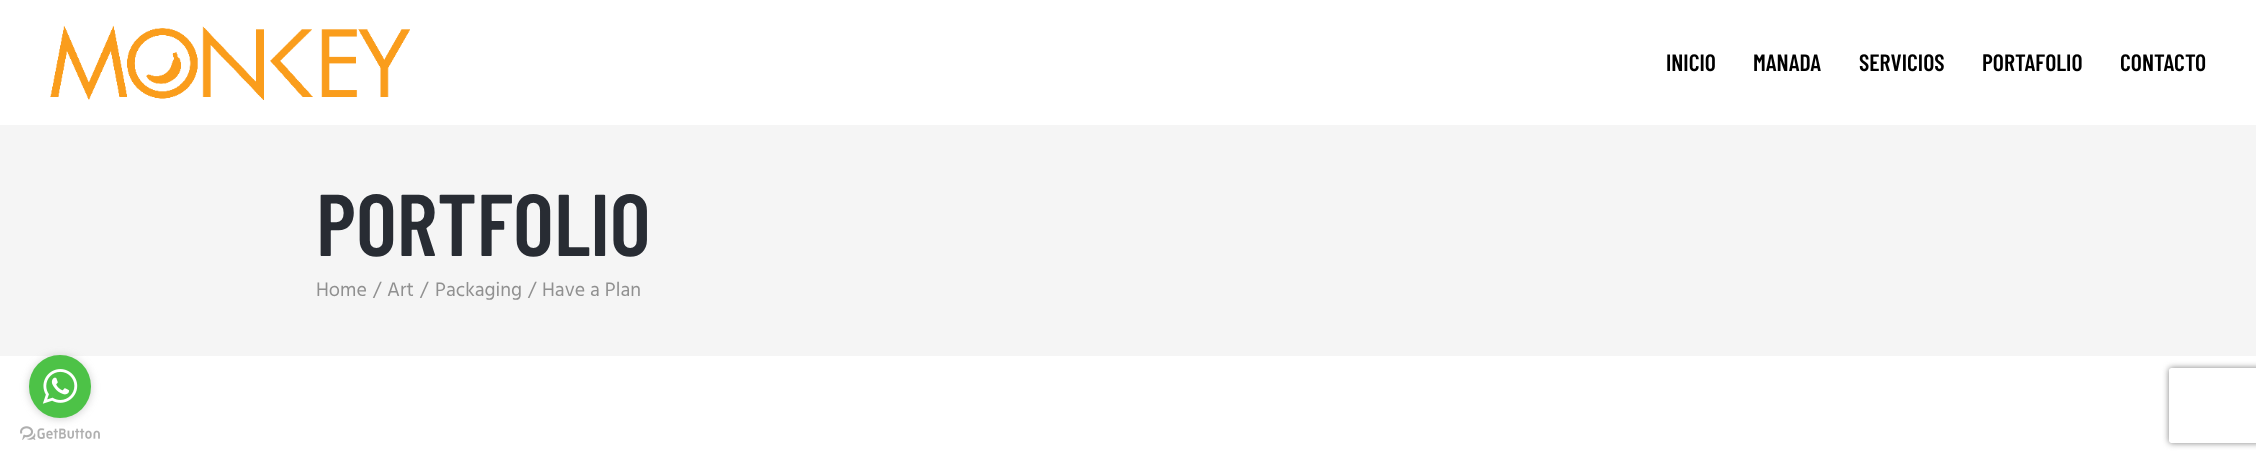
async function draw(canvas) {
  canvas.width = 2256;
  canvas.height = 460;
  const ctx = canvas.getContext('2d');
  ctx.miterLimit = 4;
  ctx.fontKerning = 'normal';
  function label(s, x, y, font, color) {
    ctx.font = font;
    ctx.fillStyle = color;
    ctx.fillText(s, x, y);
  }
  function rect(x, y, w, h, color) {
    ctx.fillStyle = color;
    ctx.fillRect(x, y, w, h);
  }
  function roundedRect(x, y, w, h, r, color) {
    ctx.fillStyle = color;
    ctx.beginPath();
    ctx.roundRect(x, y, w, h, r);
    ctx.fill();
  }
  async function image(src, x, y, w, h) {
    const img = new Image();
    img.src = src;
    await img.decode();
    ctx.drawImage(img, x, y, w, h);
  }
  let path;

  rect(0, 0, 2256, 460, '#fff');
  await image('assets/img1.png', 50, 25, 360, 75);
  label('INICIO', 1666, 71, '600 23.75px Barlow Condensed', '#000');
  label('MANADA', 1753, 71, '600 23.75px Barlow Condensed', '#000');
  label('SERVICIOS', 1859, 71, '600 23.75px Barlow Condensed', '#000');
  label('PORTAFOLIO', 1982, 71, '600 23.75px Barlow Condensed', '#000');
  label('CONTACTO', 2120, 71, '600 23.75px Barlow Condensed', '#000');
  rect(0, 125, 2256, 231, '#f5f5f5');
  label('PORTFOLIO', 316, 256, '600 87.5px Barlow Condensed', '#282c33');
  label('Home', 316, 296, '20px Hind', '#909090');
  label('/', 373, 296, '20px Hind', '#909090');
  label('Art', 387, 296, '20px Hind', '#909090');
  label('/', 420, 296, '20px Hind', '#909090');
  label('Packaging', 435, 296, '20px Hind', '#909090');
  label('/', 528, 296, '20px Hind', '#909090');
  label('Have a Plan', 542, 296, '20px Hind', '#909090');
  await image('assets/img3.png', 20, 426, 80, 14);
  ctx.fillStyle = '#88888866';
  ctx.filter = 'blur(4.5px)';
  ctx.beginPath();
  ctx.roundRect(29, 356, 62, 63, 31);
  ctx.fill();
  ctx.filter = 'none';
  roundedRect(29, 355, 62, 63, 31, '#4dc247');
  await image('assets/img2.png', 42, 369, 36, 35);
  ctx.save();
  path = new Path2D('M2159 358H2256V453H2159ZM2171.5 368H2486.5C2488 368 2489 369 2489 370.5V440.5C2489 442 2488 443 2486.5 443H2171.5C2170 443 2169 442 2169 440.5V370.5C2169 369 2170 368 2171.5 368Z');
  ctx.clip(path, 'evenodd');
  ctx.fillStyle = '#808080';
  ctx.filter = 'blur(3px)';
  ctx.beginPath();
  ctx.roundRect(2169, 368, 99, 75, 2.5);
  ctx.fill();
  ctx.filter = 'none';
  ctx.restore();
}

draw(document.querySelector('canvas'));
